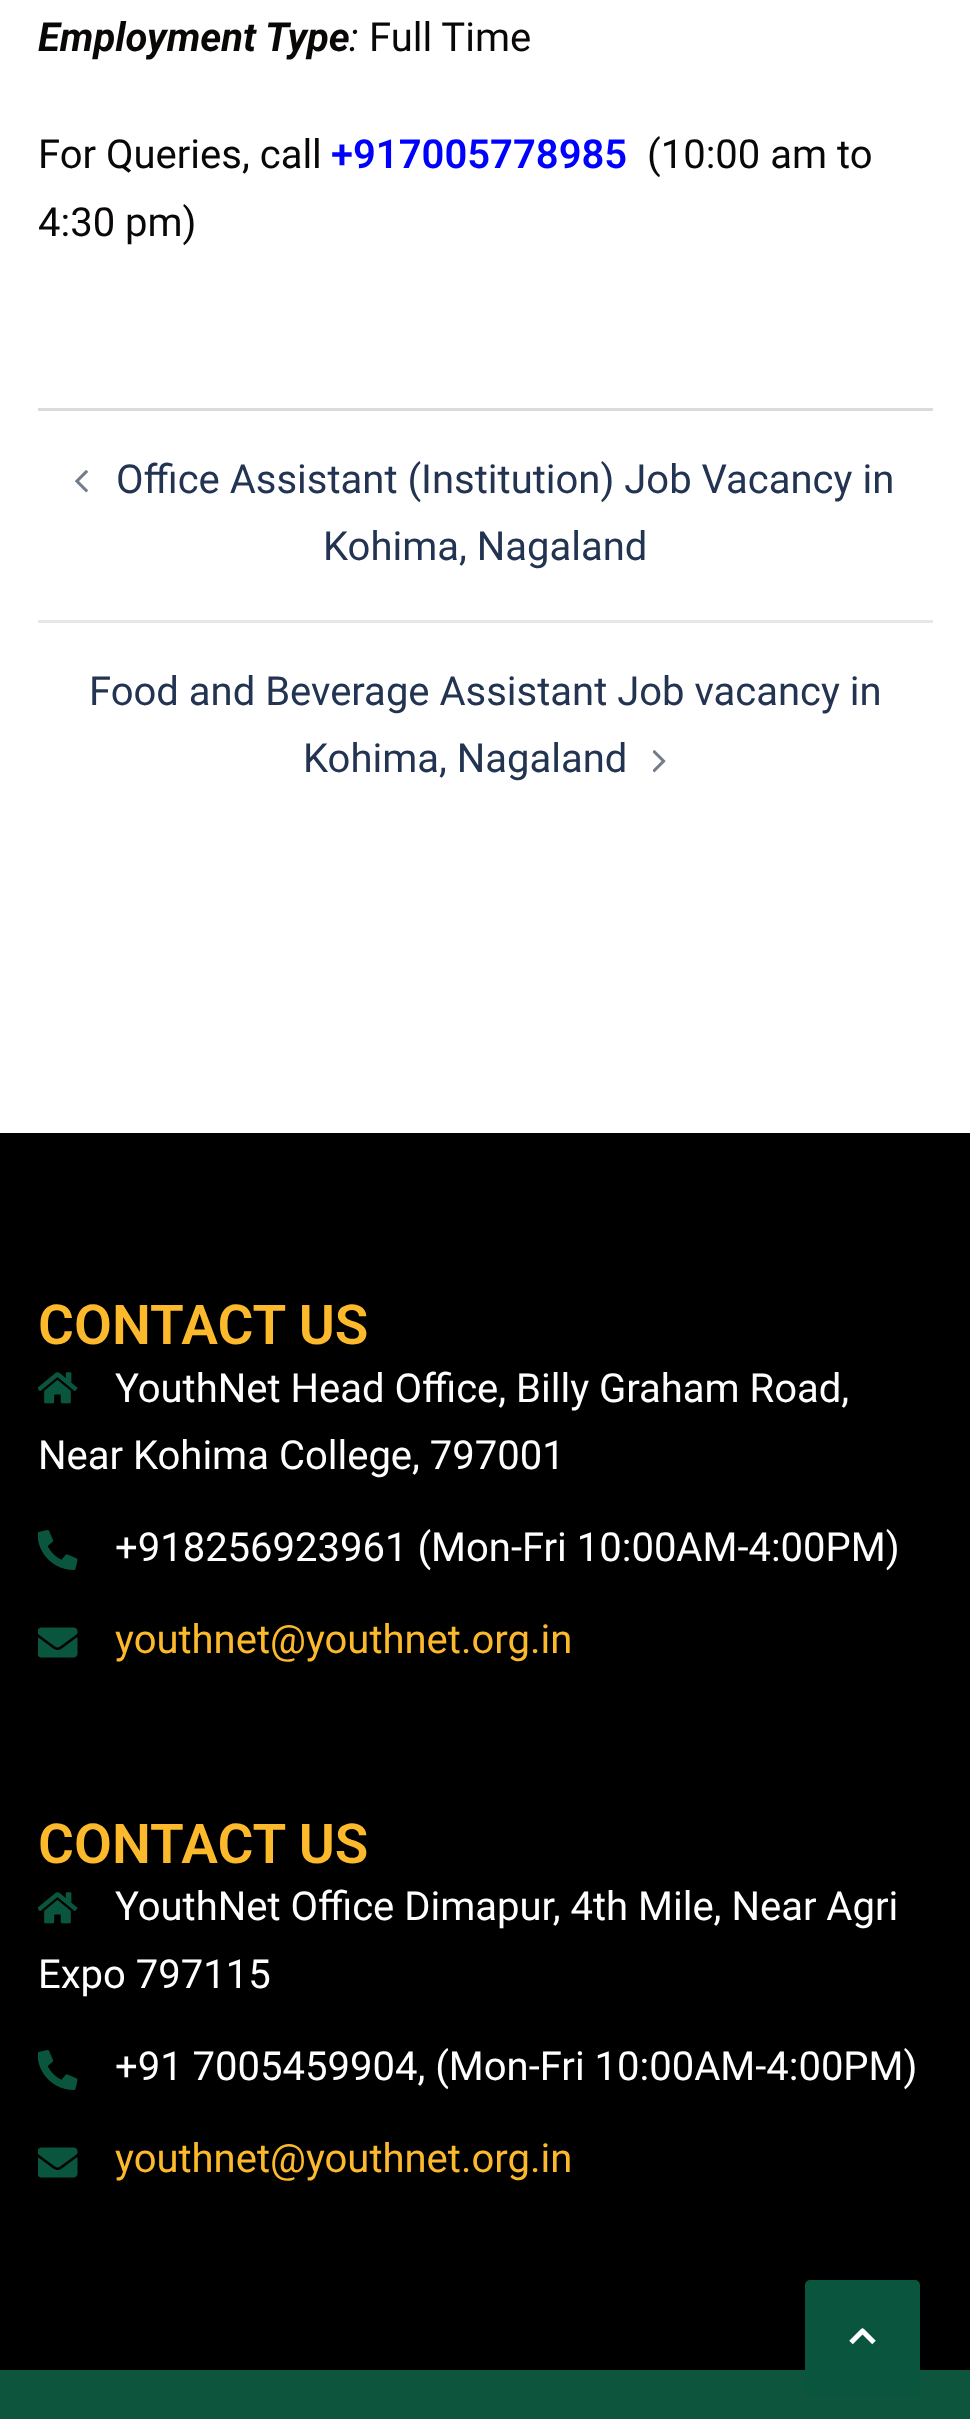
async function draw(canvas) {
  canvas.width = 970;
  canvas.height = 2419;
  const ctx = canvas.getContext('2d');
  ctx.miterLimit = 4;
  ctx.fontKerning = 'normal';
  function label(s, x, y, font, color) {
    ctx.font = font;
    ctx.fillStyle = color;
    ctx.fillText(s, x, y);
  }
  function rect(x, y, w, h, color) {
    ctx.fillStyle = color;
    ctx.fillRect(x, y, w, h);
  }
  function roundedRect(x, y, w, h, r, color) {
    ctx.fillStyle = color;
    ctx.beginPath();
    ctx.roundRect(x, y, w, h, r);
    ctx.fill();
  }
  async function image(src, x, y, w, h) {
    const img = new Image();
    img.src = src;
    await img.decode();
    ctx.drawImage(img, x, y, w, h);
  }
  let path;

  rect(0, 0, 970, 2419, '#fff');
  label('Employment Type', 38, 51, 'italic bold 40px Roboto', '#0a0707');
  label(':', 349, 51, 'italic 40px Roboto', '#0a0707');
  label('Full Time', 369, 51, '40px Roboto', '#0a0707');
  label('For Queries, call', 38, 168, '40px Roboto', '#0a0707');
  label('+917005778985', 331, 168, '600 40px Roboto', '#00f');
  label('(10:00 am to', 647, 168, '40px Roboto', '#0a0707');
  label('4:30 pm)', 38, 236, '40px Roboto', '#0a0707');
  rect(38, 408, 895, 3, '#dbdbdb');
  rect(38, 620, 895, 3, '#e6e7ea');
  await image('assets/img1.png', 75, 470, 13, 23);
  label('Office Assistant (Institution) Job Vacancy in', 116, 493, '40px Roboto', '#233452');
  label('Kohima, Nagaland', 323, 560, '40px Roboto', '#233452');
  label('Food and Beverage Assistant Job vacancy in', 89, 705, '40px Roboto', '#233452');
  label('Kohima, Nagaland', 303, 772, '40px Roboto', '#233452');
  await image('assets/img2.png', 653, 750, 13, 23);
  rect(0, 1133, 970, 1237, '#000');
  label('CONTACT US', 38, 1344, '600 55px Roboto', '#fcb92b');
  await image('assets/img3.png', 38, 1372, 40, 32);
  label('YouthNet Head Office, Billy Graham Road,', 115, 1402, '40px Roboto', '#fff');
  label('Near Kohima College, 797001', 38, 1469, '40px Roboto', '#fff');
  await image('assets/img4.png', 38, 1530, 40, 40);
  label('+918256923961 (Mon-Fri 10:00AM-4:00PM)', 115, 1561, '40px Roboto', '#fff');
  await image('assets/img5.png', 38, 1627, 40, 31);
  label('youthnet@youthnet.org.in', 115, 1653, '40px Roboto', '#fcb92b');
  label('CONTACT US', 38, 1863, '600 55px Roboto', '#fcb92b');
  await image('assets/img3.png', 38, 1892, 40, 32);
  label('YouthNet Office Dimapur, 4th Mile, Near Agri', 115, 1920, '40px Roboto', '#fff');
  label('Expo 797115', 38, 1988, '40px Roboto', '#fff');
  await image('assets/img4.png', 38, 2050, 40, 40);
  label('+91 7005459904, (Mon-Fri 10:00AM-4:00PM)', 115, 2080, '40px Roboto', '#fff');
  await image('assets/img5.png', 38, 2147, 40, 31);
  label('youthnet@youthnet.org.in', 115, 2172, '40px Roboto', '#fcb92b');
  rect(0, 2370, 970, 49, '#0e553d');
  roundedRect(805, 2280, 115, 115, 5, '#0a553d');
  path = new Path2D('M851 2342.5L862.5 2331L874 2342.5');
  ctx.strokeStyle = '#fff';
  ctx.lineWidth = 5;
  ctx.lineJoin = 'round';
  ctx.stroke(path);
}

draw(document.querySelector('canvas'));
